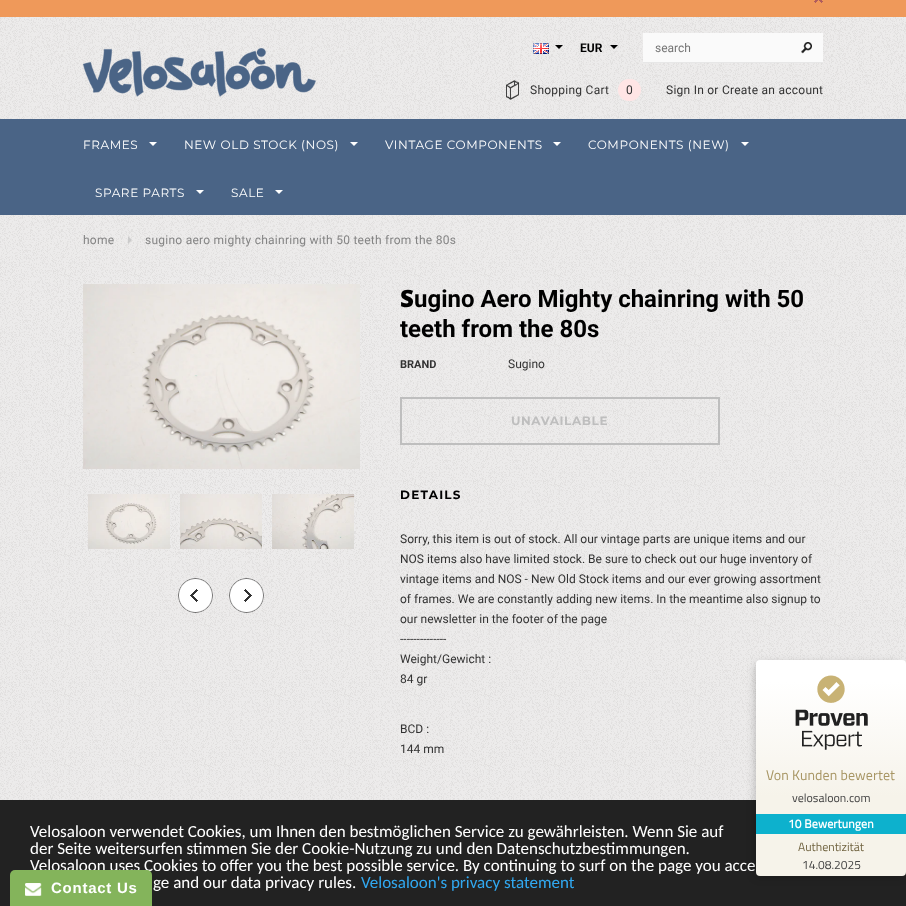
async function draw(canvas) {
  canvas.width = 906;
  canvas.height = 906;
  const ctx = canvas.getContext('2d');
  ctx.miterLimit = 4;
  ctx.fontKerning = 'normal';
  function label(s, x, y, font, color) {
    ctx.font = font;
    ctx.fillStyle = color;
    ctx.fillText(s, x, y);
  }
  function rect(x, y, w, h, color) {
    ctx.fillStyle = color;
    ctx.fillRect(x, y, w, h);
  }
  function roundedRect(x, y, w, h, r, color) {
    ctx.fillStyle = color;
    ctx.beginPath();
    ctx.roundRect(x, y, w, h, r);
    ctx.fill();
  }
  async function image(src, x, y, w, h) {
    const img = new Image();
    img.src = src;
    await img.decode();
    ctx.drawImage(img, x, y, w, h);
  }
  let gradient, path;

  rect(0, 0, 906, 906, '#fff');
  await image('assets/img1.png', 0, 215, 906, 585);
  rect(0, 0, 906, 17, '#ef995a');
  await image('assets/img2.png', 814, 0, 9, 3);
  await image('assets/img3.png', 0, 17, 906, 102);
  await image('assets/img4.png', 533, 43, 16, 11);
  ctx.fillStyle = '#000';
  path = new Path2D('M555 45H563L559 49Z');
  ctx.fill(path);
  label('EUR', 580, 52, 'bold 12px Roboto', '#000');
  path = new Path2D('M610 45H618L614 49Z');
  ctx.fill(path);
  rect(643, 33, 180, 29, '#fafafa');
  rect(643, 62, 180, 1, '#e7e7e7');
  label('search', 655, 52, '12px Roboto', '#757575');
  await image('assets/img5.png', 801, 42, 11, 12);
  await image('assets/img6.png', 83, 48, 233, 49);
  await image('assets/img7.png', 506, 80, 13, 20);
  ctx.letterSpacing = '0.25px';
  label('Shopping Cart', 530, 94, '12px Roboto', '#323232');
  roundedRect(618, 79, 23, 22, 11, '#ffe5e5');
  label('0', 626, 94, '12px Roboto', '#323232');
  label('Sign In or Create an account', 666, 94, '12px Roboto', '#323232');
  rect(0, 119, 906, 96, '#4a6486');
  ctx.letterSpacing = '0.6px';
  label('FRAMES', 83, 149, '12px Montserrat', '#fff');
  path = new Path2D('M149 142H157L153 146Z');
  ctx.fill(path);
  label('NEW OLD STOCK (NOS)', 184, 149, '12px Montserrat', '#fff');
  path = new Path2D('M350 142H358L354 146Z');
  ctx.fill(path);
  label('VINTAGE COMPONENTS', 385, 149, '12px Montserrat', '#fff');
  path = new Path2D('M553 142H561L557 146Z');
  ctx.fill(path);
  label('COMPONENTS (NEW)', 588, 149, '12px Montserrat', '#fff');
  path = new Path2D('M741 142H749L745 146Z');
  ctx.fill(path);
  label('SPARE PARTS', 95, 197, '12px Montserrat', '#fff');
  path = new Path2D('M196 190H204L200 194Z');
  ctx.fill(path);
  label('SALE', 231, 197, '12px Montserrat', '#fff');
  path = new Path2D('M275 190H283L279 194Z');
  ctx.fill(path);
  ctx.letterSpacing = '0.25px';
  label('home', 83, 244, '12px Roboto', '#848484');
  ctx.fillStyle = '#cbcbcb';
  path = new Path2D('M128 244V236L132 240Z');
  ctx.fill(path);
  label('sugino aero mighty chainring with 50 teeth from the 80s', 145, 244, '12px Roboto', '#848484');
  await image('assets/img8.png', 83, 284, 277, 185);
  await image('assets/img9.png', 83, 494, 277, 64);
  await image('assets/img10.png', 88, 494, 82, 55);
  await image('assets/img11.png', 180, 494, 82, 55);
  await image('assets/img12.png', 272, 494, 82, 55);
  await image('assets/img13.png', 178, 578, 35, 35);
  await image('assets/img14.png', 229, 578, 35, 35);
  ctx.letterSpacing = '0px';
  label('S', 400, 307, '900 24px Noto Sans', '#000');
  label('ugino Aero Mighty chainring with 50', 414, 307, 'bold 24px Roboto', '#000');
  label('teeth from the 80s', 400, 337, 'bold 24px Roboto', '#000');
  label('BRAND', 400, 368, 'bold 11px Roboto', '#323232');
  label('Sugino', 508, 368, '12px Roboto', '#323232');
  ctx.strokeStyle = '#bebebe';
  ctx.lineWidth = 2;
  ctx.strokeRect(401, 398, 318, 46);
  ctx.letterSpacing = '0.6px';
  label('UNAVAILABLE', 511, 425, 'bold 12px Montserrat', '#bebebe');
  ctx.letterSpacing = '1.25px';
  label('DETAILS', 400, 499, 'bold 12px Montserrat', '#000');
  ctx.letterSpacing = '0px';
  label('Sorry, this item is out of stock. All our vintage parts are unique items and our', 400, 543, '12px Roboto', '#323232');
  label('NOS items also have limited stock. Be sure to check out our huge inventory of', 400, 563, '12px Roboto', '#323232');
  label('vintage items and NOS - New Old Stock items and our ever growing assortment', 400, 583, '12px Roboto', '#323232');
  label('of frames. We are constantly adding new items. In the meantime also signup to', 400, 603, '12px Roboto', '#323232');
  label('our newsletter in the footer of the page', 400, 623, '12px Roboto', '#323232');
  label('--------------', 400, 643, '12px Roboto', '#323232');
  label('Weight/Gewicht :', 400, 663, '12px Roboto', '#323232');
  label('84 gr', 400, 683, '12px Roboto', '#323232');
  label('BCD :', 400, 733, '12px Roboto', '#323232');
  label('144 mm', 400, 753, '12px Roboto', '#323232');
  rect(0, 800, 906, 106, '#222');
  label('Velosaloon verwendet Cookies, um Ihnen den bestmöglichen Service zu gewährleisten. Wenn Sie auf', 30, 837, '17px Carlito', '#fff');
  label('der Seite weitersurfen stimmen Sie der Cookie-Nutzung zu und den Datenschutzbestimmungen.', 30, 854, '17px Carlito', '#fff');
  label('Velosaloon uses Cookies to offer you the best possible service. By continuing to surf on the page you acce', 30, 871, '17px Carlito', '#fff');
  label('ge and our data privacy rules.', 153, 888, '17px Carlito', '#fff');
  label('Velosaloon\'s privacy statement', 361, 888, '17px Carlito', '#31a8f0');
  ctx.fillStyle = '#00000040';
  ctx.filter = 'blur(5px)';
  ctx.beginPath();
  ctx.roundRect(756, 664, 146, 212, 2);
  ctx.fill();
  ctx.filter = 'none';
  gradient = ctx.createLinearGradient(831, 876, 831, 660);
  gradient.addColorStop(0.37, '#f6f3ea');
  gradient.addColorStop(0.9, '#fff');
  ctx.fillStyle = gradient;
  ctx.beginPath();
  ctx.roundRect(756, 660, 150, 216, 4);
  ctx.fill();
  await image('assets/img15.png', 795, 675, 73, 75);
  ctx.letterSpacing = '0.1px';
  label('Von Kunden bewertet', 766, 780, '14px Titillium Web', '#a79563');
  ctx.letterSpacing = '0px';
  label('velosaloon.com', 792, 802, '12px Titillium Web', '#444');
  rect(756, 814, 150, 20, '#0db1cd');
  ctx.letterSpacing = '0.1px';
  label('10 Bewertungen', 788, 828, 'bold 12px Titillium Web', '#fff');
  ctx.letterSpacing = '0px';
  label('Authentizität', 798, 851, '12px Titillium Web', '#726542');
  label('14.08.2025', 802, 869, '12px Titillium Web', '#444');
  ctx.fillStyle = '#84b45b';
  ctx.beginPath();
  ctx.roundRect(10, 870, 142, 36, [5, 5, 0, 0]);
  ctx.fill();
  await image('assets/img16.png', 25, 883, 17, 13);
  ctx.letterSpacing = '0.75px';
  label('Contact Us', 51, 893, 'bold 15px Liberation Sans', '#fff');
}

draw(document.querySelector('canvas'));
